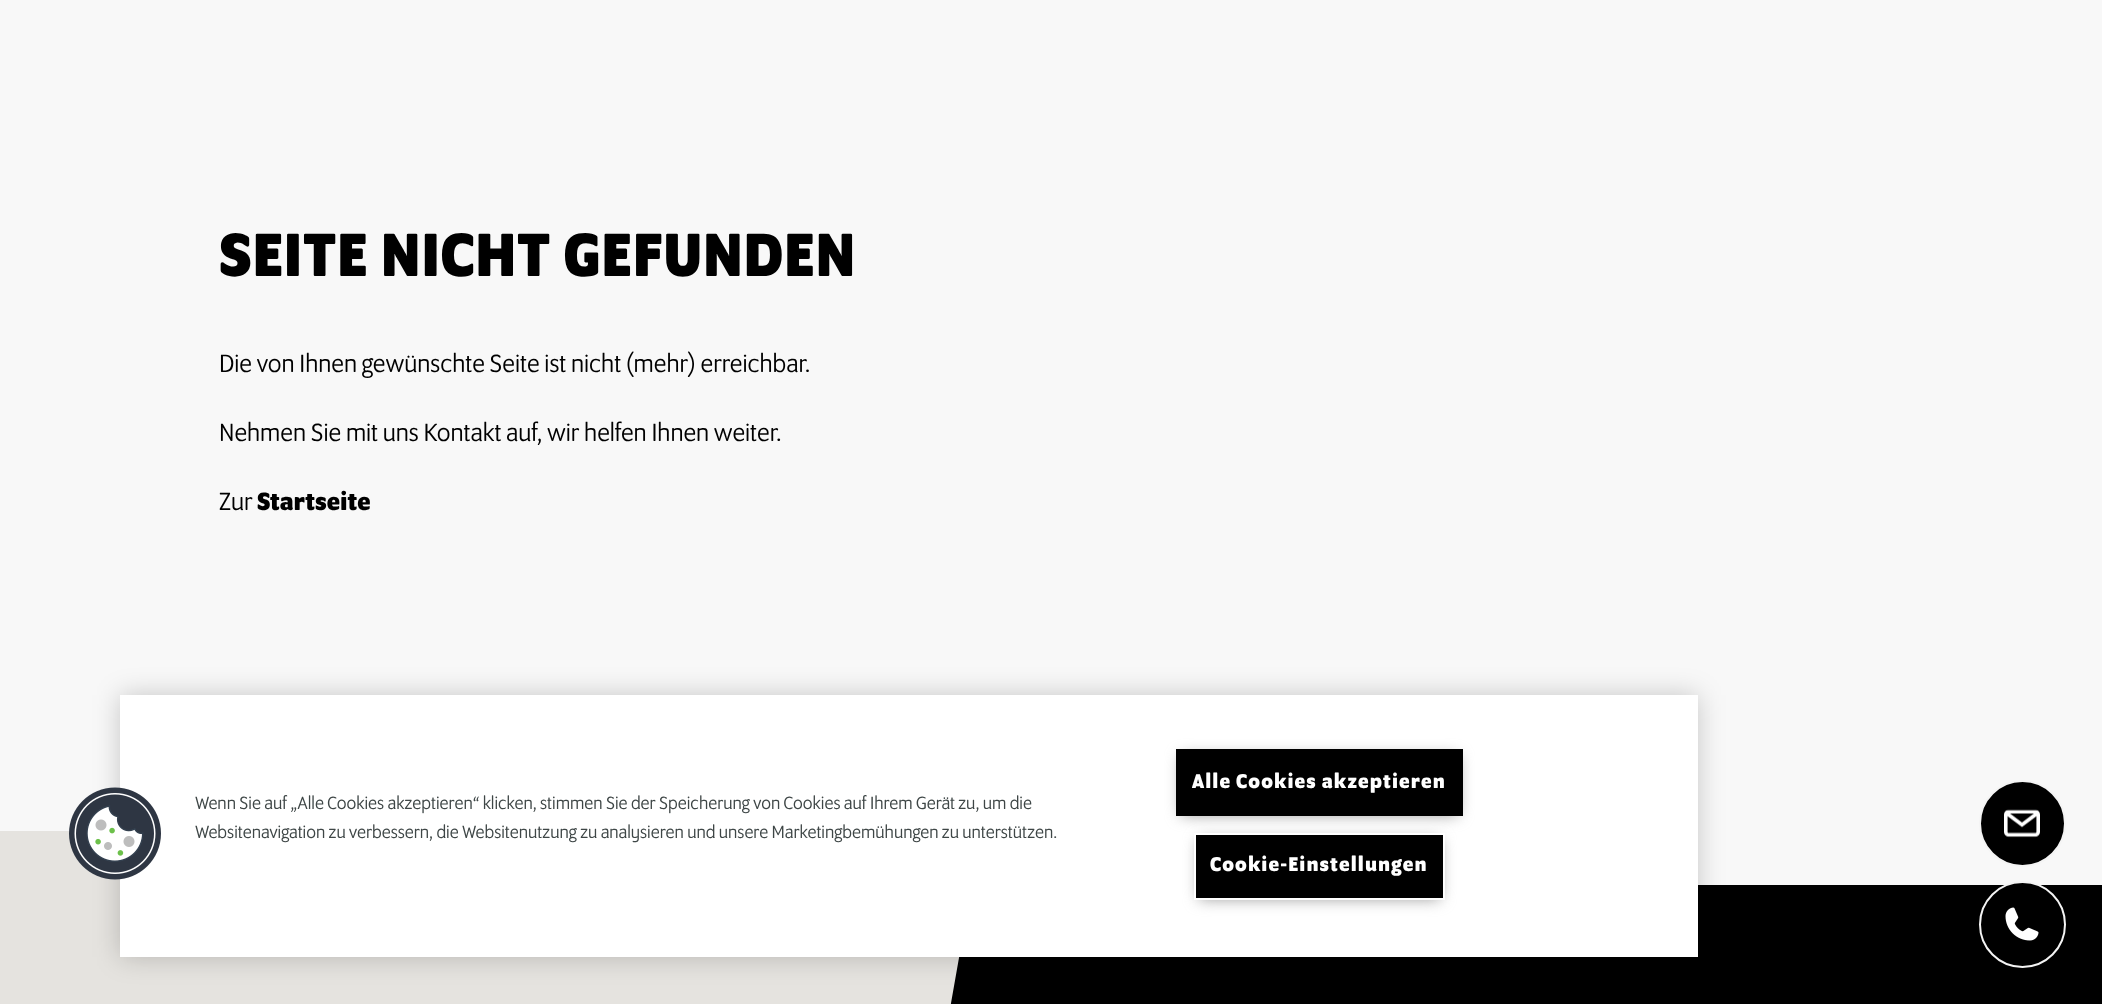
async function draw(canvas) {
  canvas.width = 2102;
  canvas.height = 1004;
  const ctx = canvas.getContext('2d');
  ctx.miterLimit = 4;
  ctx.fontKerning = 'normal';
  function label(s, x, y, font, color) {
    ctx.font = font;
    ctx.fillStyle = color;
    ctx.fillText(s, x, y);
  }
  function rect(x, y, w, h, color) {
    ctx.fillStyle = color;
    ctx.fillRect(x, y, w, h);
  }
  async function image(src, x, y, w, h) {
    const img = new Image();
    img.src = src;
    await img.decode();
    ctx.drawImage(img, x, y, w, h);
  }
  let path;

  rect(0, 0, 2102, 1004, '#f8f8f8');
  ctx.letterSpacing = '0.75px';
  label('SEITE NICHT GEFUNDEN', 219, 276, 'bold 66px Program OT', '#000');
  ctx.letterSpacing = '0px';
  label('Die von Ihnen gewünschte Seite ist nicht (mehr) erreichbar.', 219, 372, '27px Program OT', '#000');
  label('Nehmen Sie mit uns Kontakt auf, wir helfen Ihnen weiter.', 219, 441, '27px Program OT', '#000');
  label('Zur', 219, 510, '27px Program OT', '#000');
  label('Startseite', 257, 510, 'bold 27px Program OT', '#000');
  ctx.beginPath();
  ctx.arc(2022.5, 823.5, 42.5, 0, 2 * Math.PI);
  ctx.fill();
  ctx.strokeStyle = '#f4f4f4';
  ctx.lineWidth = 2;
  ctx.stroke();
  await image('assets/img1.png', 2004, 809, 36, 29);
  rect(950, 885, 1152, 119, '#000');
  ctx.beginPath();
  ctx.arc(2022.5, 924.5, 42.5, 0, 2 * Math.PI);
  ctx.fill();
  ctx.stroke();
  await image('assets/img2.png', 2005, 907, 34, 34);
  ctx.fillStyle = '#e5e3df';
  path = new Path2D('M-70 831H960C971 831 978 840 978 850L886 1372C884 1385 872 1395 859 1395H-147C-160 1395-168 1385-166 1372L-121 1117Z');
  ctx.fill(path);
  ctx.fillStyle = '#00000033';
  ctx.filter = 'blur(13.5px)';
  ctx.beginPath();
  ctx.rect(120, 695, 1578, 262);
  ctx.fill();
  ctx.filter = 'none';
  rect(120, 695, 1578, 262, '#fff');
  await image('assets/img3.png', 69, 787, 92, 93);
  label('Wenn Sie auf „Alle Cookies akzeptieren“ klicken, stimmen Sie der Speicherung von Cookies auf Ihrem Gerät zu, um die', 195, 809, '19.2px Program OT', '#3e4646');
  label('Websitenavigation zu verbessern, die Websitenutzung zu analysieren und unsere Marketingbemühungen zu unterstützen.', 195, 838, '19.2px Program OT', '#3e4646');
  ctx.fillStyle = '#999';
  ctx.filter = 'blur(7.5px)';
  ctx.beginPath();
  ctx.rect(1181, 756, 277, 59);
  ctx.fill();
  ctx.filter = 'none';
  rect(1176, 749, 287, 67, '#000');
  ctx.letterSpacing = '1.1px';
  label('Alle Cookies akzeptieren', 1192, 788, 'bold 21.6px Program OT', '#fff');
  ctx.fillStyle = '#999';
  ctx.filter = 'blur(7.5px)';
  ctx.beginPath();
  ctx.rect(1199, 840, 241, 59);
  ctx.fill();
  ctx.filter = 'none';
  ctx.fillStyle = '#000';
  ctx.beginPath();
  ctx.rect(1195, 834, 249, 65);
  ctx.fill();
  ctx.strokeStyle = '#fff';
  ctx.stroke();
  label('Cookie-Einstellungen', 1210, 871, 'bold 21.6px Program OT', '#fff');
}

draw(document.querySelector('canvas'));
